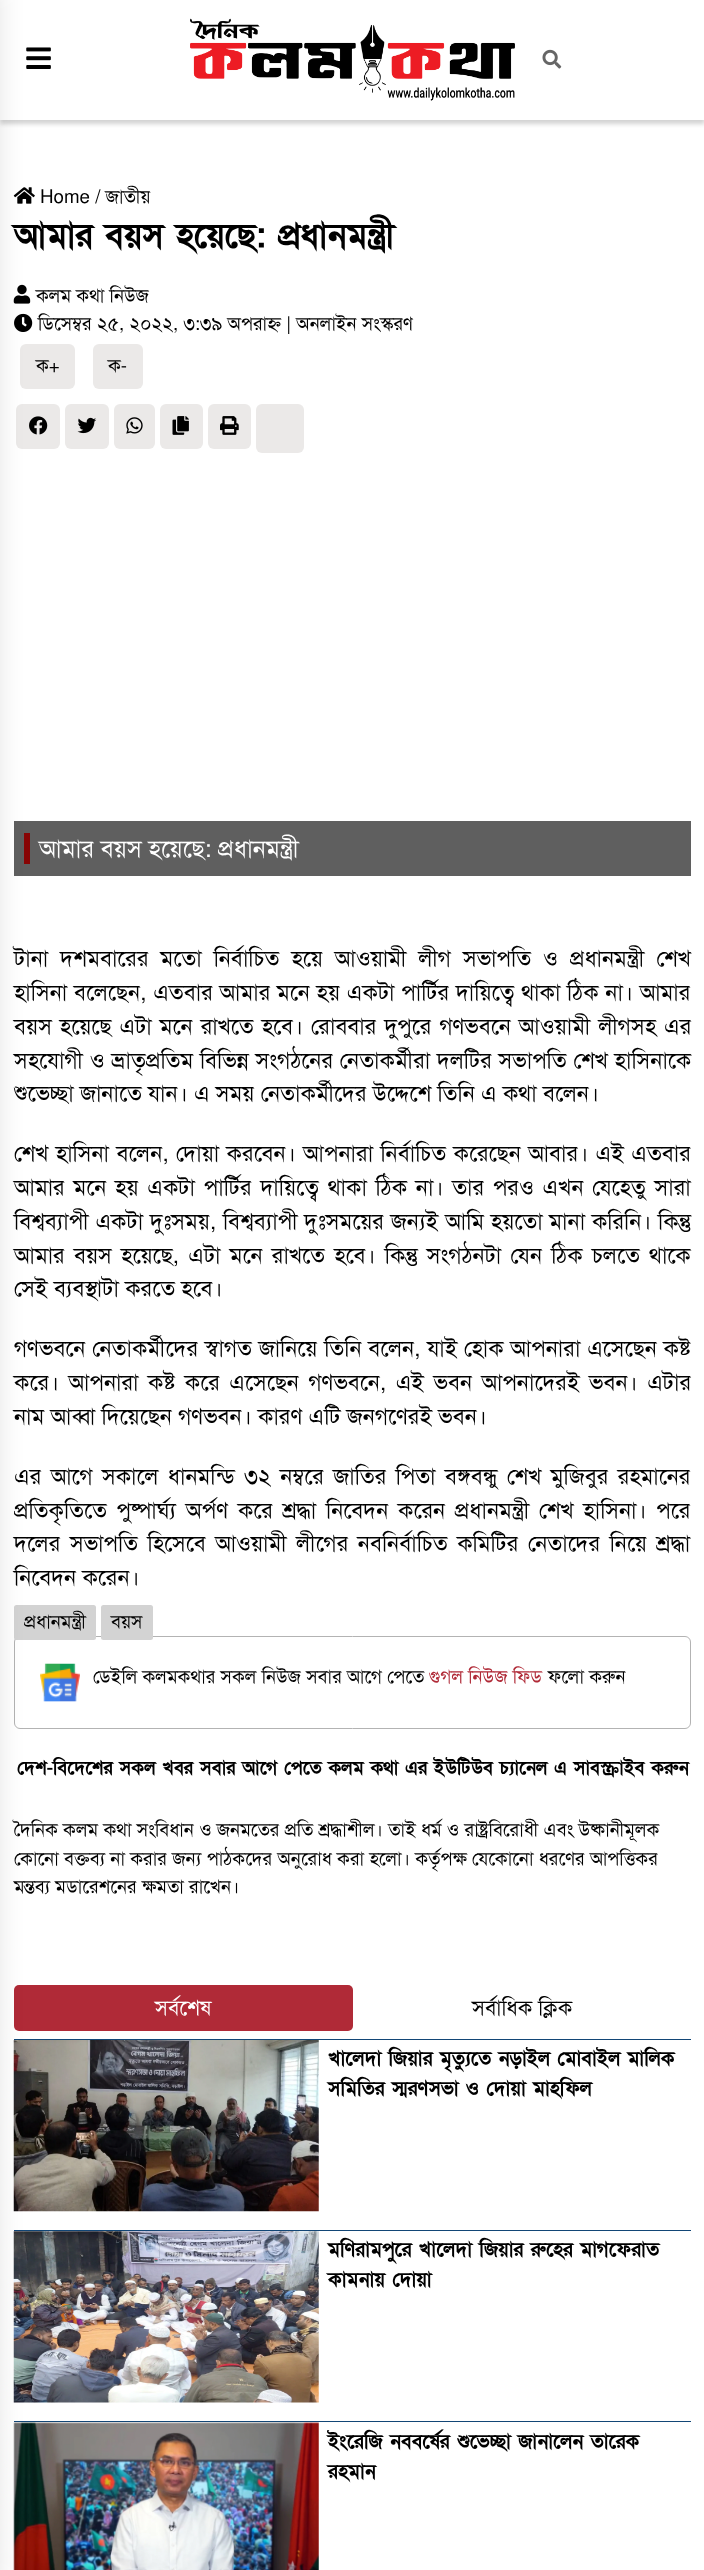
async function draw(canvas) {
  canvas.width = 704;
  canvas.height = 2570;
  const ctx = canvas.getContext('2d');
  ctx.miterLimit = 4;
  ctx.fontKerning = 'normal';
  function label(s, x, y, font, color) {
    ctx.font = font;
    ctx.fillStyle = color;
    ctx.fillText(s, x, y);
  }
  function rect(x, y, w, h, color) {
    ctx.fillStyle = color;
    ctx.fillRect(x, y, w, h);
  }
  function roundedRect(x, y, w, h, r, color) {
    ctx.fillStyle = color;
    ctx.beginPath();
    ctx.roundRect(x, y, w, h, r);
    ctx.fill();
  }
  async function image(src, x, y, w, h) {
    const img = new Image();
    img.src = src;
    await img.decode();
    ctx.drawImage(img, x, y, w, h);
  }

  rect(0, 0, 704, 2570, '#fff');
  ctx.save();
  ctx.beginPath();
  ctx.rect(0, 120, 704, 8);
  ctx.clip();
  ctx.fillStyle = '#d3d3d3';
  ctx.filter = 'blur(2px)';
  ctx.beginPath();
  ctx.rect(0, 4, 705, 120);
  ctx.fill();
  ctx.filter = 'none';
  ctx.restore();
  await image('assets/img1.png', 26, 47, 25, 22);
  await image('assets/img2.png', 190, 18, 325, 83);
  await image('assets/img3.png', 542, 49, 20, 20);
  await image('assets/img4.png', 13, 187, 22, 17);
  await image('assets/img5.png', 13, 284, 18, 20);
  await image('assets/img6.png', 14, 313, 19, 19);
  roundedRect(20, 344, 55, 45, 6, '#ebe9e8');
  roundedRect(16, 404, 44, 45, 6, '#ebe9e8');
  await image('assets/img7.png', 29, 416, 19, 19);
  rect(14, 821, 677, 55, '#5f5f5f');
  rect(24, 833, 6, 31, '#880404');
  ctx.beginPath();
  ctx.roundRect(14.5, 1636.5, 676, 92, 5.5);
  ctx.strokeStyle = '#b3b3b3';
  ctx.stroke();
  roundedRect(14, 1605, 82, 35, 2.5, '#d3d3d3');
  roundedRect(14, 1985, 339, 46, 5, '#b02a37');
  rect(14, 2039, 677, 1, '#124676');
  await image('assets/img13.png', 13, 2040, 306, 172);
  rect(14, 2230, 677, 1, '#124676');
  await image('assets/img14.png', 13, 2231, 306, 172);
  rect(14, 2421, 677, 1, '#124676');
  await image('assets/img15.png', 13, 2422, 306, 148);
  ctx.fillStyle = '#0000001a';
  ctx.filter = 'blur(12.5px)';
  ctx.beginPath();
  ctx.rect(-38, -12, 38, 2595);
  ctx.fill();
  ctx.filter = 'none';
  label('Home / জাতীয়', 40, 203, '18.75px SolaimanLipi', '#000');
  label('আমার বয়স হয়েছে: প্রধানমন্ত্রী', 14, 247, 'bold 34.75px SolaimanLipi', '#000');
  label('কলম কথা নিউজ', 36, 302, '18.75px SolaimanLipi', '#000');
  label('ডিসেম্বর ২৫, ২০২২, ৩:৩৯ অপরাহ্ণ | অনলাইন সংস্করণ', 38, 330, '18.75px SolaimanLipi', '#000');
  label('ক+', 36, 372, '18.75px SolaimanLipi', '#000');
  roundedRect(93, 344, 50, 45, 6, '#ebe9e8');
  label('ক-', 108, 372, '18.75px SolaimanLipi', '#000');
  roundedRect(65, 404, 44, 45, 6, '#ebe9e8');
  await image('assets/img8.png', 77, 417, 20, 17);
  roundedRect(114, 404, 41, 45, 6, '#ebe9e8');
  await image('assets/img9.png', 126, 417, 17, 17);
  roundedRect(160, 404, 43, 45, 6, '#ebe9e8');
  await image('assets/img10.png', 172, 416, 17, 19);
  roundedRect(208, 404, 43, 45, 6, '#ebe9e8');
  await image('assets/img11.png', 220, 416, 19, 19);
  roundedRect(256, 404, 48, 49, 6, '#ebe9e8');
  label('আমার বয়স হয়েছে: প্রধানমন্ত্রী', 39, 857, '24.4px SolaimanLipi', '#fff');
  ctx.wordSpacing = '5.75px';
  label('টানা দশমবারের মতো নির্বাচিত হয়ে আওয়ামী লীগ সভাপতি ও প্রধানমন্ত্রী শেখ', 14, 966, '22.5px SolaimanLipi', '#000');
  ctx.wordSpacing = '0.5px';
  label('হাসিনা বলেছেন, এতবার আমার মনে হয় একটা পার্টির দায়িত্বে থাকা ঠিক না। আমার', 14, 1000, '22.5px SolaimanLipi', '#000');
  ctx.wordSpacing = '1.75px';
  label('বয়স হয়েছে এটা মনে রাখতে হবে। রোববার দুপুরে গণভবনে আওয়ামী লীগসহ এর', 14, 1034, '22.5px SolaimanLipi', '#000');
  ctx.wordSpacing = '0.5px';
  label('সহযোগী ও ভ্রাতৃপ্রতিম বিভিন্ন সংগঠনের নেতাকর্মীরা দলটির সভাপতি শেখ হাসিনাকে', 14, 1068, '22.5px SolaimanLipi', '#000');
  ctx.wordSpacing = '0px';
  label('শুভেচ্ছা জানাতে যান। এ সময় নেতাকর্মীদের উদ্দেশে তিনি এ কথা বলেন।', 14, 1101, '22.5px SolaimanLipi', '#000');
  ctx.wordSpacing = '1.1px';
  label('শেখ হাসিনা বলেন, দোয়া করবেন। আপনারা নির্বাচিত করেছেন আবার। এই এতবার', 14, 1161, '22.5px SolaimanLipi', '#000');
  ctx.wordSpacing = '2.5px';
  label('আমার মনে হয় একটা পার্টির দায়িত্বে থাকা ঠিক না। তার পরও এখন যেহেতু সারা', 14, 1195, '22.5px SolaimanLipi', '#000');
  ctx.wordSpacing = '0.5px';
  label('বিশ্বব্যাপী একটা দুঃসময়, বিশ্বব্যাপী দুঃসময়ের জন্যই আমি হয়তো মানা করিনি। কিন্তু', 14, 1229, '22.5px SolaimanLipi', '#000');
  ctx.wordSpacing = '3px';
  label('আমার বয়স হয়েছে, এটা মনে রাখতে হবে। কিন্তু সংগঠনটা যেন ঠিক চলতে থাকে', 14, 1263, '22.5px SolaimanLipi', '#000');
  ctx.wordSpacing = '0px';
  label('সেই ব্যবস্থাটা করতে হবে।', 14, 1296, '22.5px SolaimanLipi', '#000');
  ctx.wordSpacing = '0.5px';
  label('গণভবনে নেতাকর্মীদের স্বাগত জানিয়ে তিনি বলেন, যাই হোক আপনারা এসেছেন কষ্ট', 14, 1356, '22.5px SolaimanLipi', '#000');
  ctx.wordSpacing = '3.25px';
  label('করে। আপনারা কষ্ট করে এসেছেন গণভবনে, এই ভবন আপনাদেরই ভবন। এটার', 14, 1390, '22.5px SolaimanLipi', '#000');
  ctx.wordSpacing = '0px';
  label('নাম আব্বা দিয়েছেন গণভবন। কারণ এটি জনগণেরই ভবন।', 14, 1424, '22.5px SolaimanLipi', '#000');
  ctx.wordSpacing = '3.1px';
  label('এর আগে সকালে ধানমন্ডি ৩২ নম্বরে জাতির পিতা বঙ্গবন্ধু শেখ মুজিবুর রহমানের', 14, 1484, '22.5px SolaimanLipi', '#000');
  ctx.wordSpacing = '3.5px';
  label('প্রতিকৃতিতে পুষ্পার্ঘ্য অর্পণ করে শ্রদ্ধা নিবেদন করেন প্রধানমন্ত্রী শেখ হাসিনা। পরে', 14, 1518, '22.5px SolaimanLipi', '#000');
  ctx.wordSpacing = '3.25px';
  label('দলের সভাপতি হিসেবে আওয়ামী লীগের নবনির্বাচিত কমিটির নেতাদের নিয়ে শ্রদ্ধা', 14, 1551, '22.5px SolaimanLipi', '#000');
  ctx.wordSpacing = '0px';
  label('নিবেদন করেন।', 14, 1585, '22.5px SolaimanLipi', '#000');
  label('প্রধানমন্ত্রী', 24, 1628, '18.75px SolaimanLipi', '#000');
  roundedRect(101, 1605, 52, 35, 2.5, '#d3d3d3');
  label('বয়স', 111, 1628, '18.75px SolaimanLipi', '#000');
  await image('assets/img12.png', 40, 1663, 40, 39);
  label('ডেইলি কলমকথার সকল নিউজ সবার আগে পেতে', 93, 1683, '18.75px SolaimanLipi', '#000');
  label('গুগল নিউজ ফিড', 429, 1683, '18.75px SolaimanLipi', '#b02a37');
  label('ফলো করুন', 548, 1683, '18.75px SolaimanLipi', '#000');
  label('দেশ-বিদেশের সকল খবর সবার আগে পেতে কলম কথা এর ইউটিউব চ্যানেল এ সাবস্ক্রাইব করুন', 17, 1774, 'bold 18.75px SolaimanLipi', '#000');
  label('দৈনিক কলম কথা সংবিধান ও জনমতের প্রতি শ্রদ্ধাশীল। তাই ধর্ম ও রাষ্ট্রবিরোধী এবং উষ্কানীমূলক', 14, 1836, '18.75px SolaimanLipi', '#000');
  label('কোনো বক্তব্য না করার জন্য পাঠকদের অনুরোধ করা হলো। কর্তৃপক্ষ যেকোনো ধরণের আপত্তিকর', 14, 1865, '18.75px SolaimanLipi', '#000');
  label('মন্তব্য মডারেশনের ক্ষমতা রাখেন।', 14, 1893, '18.75px SolaimanLipi', '#000');
  label('সর্বশেষ', 155, 2015, '21.25px SolaimanLipi', '#fff');
  label('সর্বাধিক ক্লিক', 472, 2015, '21.25px SolaimanLipi', '#000');
  label('খালেদা জিয়ার মৃত্যুতে নড়াইল মোবাইল মালিক', 328, 2065, 'bold 20px SolaimanLipi', '#000');
  label('সমিতির স্মরণসভা ও দোয়া মাহফিল', 328, 2095, 'bold 20px SolaimanLipi', '#000');
  label('মণিরামপুরে খালেদা জিয়ার রুহের মাগফেরাত', 328, 2256, 'bold 20px SolaimanLipi', '#000');
  label('কামনায় দোয়া', 328, 2286, 'bold 20px SolaimanLipi', '#000');
  label('ইংরেজি নববর্ষের শুভেচ্ছা জানালেন তারেক', 328, 2448, 'bold 20px SolaimanLipi', '#000');
  label('রহমান', 328, 2478, 'bold 20px SolaimanLipi', '#000');
}

draw(document.querySelector('canvas'));
